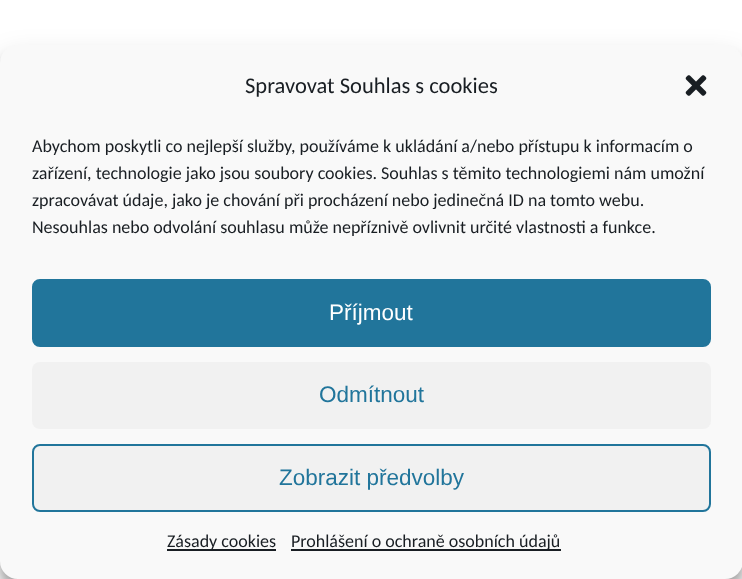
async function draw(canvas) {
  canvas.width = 742;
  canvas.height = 579;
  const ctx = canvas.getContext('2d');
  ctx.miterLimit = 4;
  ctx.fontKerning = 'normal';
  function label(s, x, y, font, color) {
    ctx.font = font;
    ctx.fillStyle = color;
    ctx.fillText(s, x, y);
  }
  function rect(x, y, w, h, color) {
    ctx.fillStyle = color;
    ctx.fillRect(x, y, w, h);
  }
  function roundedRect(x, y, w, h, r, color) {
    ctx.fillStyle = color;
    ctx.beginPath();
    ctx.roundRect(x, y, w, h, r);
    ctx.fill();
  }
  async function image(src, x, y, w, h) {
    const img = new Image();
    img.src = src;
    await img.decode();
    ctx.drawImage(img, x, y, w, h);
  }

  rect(0, 0, 742, 579, '#fff');
  ctx.fillStyle = '#0000003b';
  ctx.filter = 'blur(4.5px)';
  ctx.beginPath();
  ctx.roundRect(0, 54, 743, 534, 18);
  ctx.fill();
  ctx.filter = 'none';
  ctx.fillStyle = '#00000030';
  ctx.filter = 'blur(15px)';
  ctx.beginPath();
  ctx.roundRect(0, 60, 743, 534, 18);
  ctx.fill();
  ctx.filter = 'none';
  ctx.fillStyle = '#f9f9f9';
  ctx.beginPath();
  ctx.roundRect(1, 46, 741, 532, 17);
  ctx.fill();
  ctx.strokeStyle = '#f9f9f9';
  ctx.lineWidth = 2;
  ctx.stroke();
  label('Spravovat Souhlas s cookies', 245, 93, '22.5px Carlito', '#191e23');
  await image('assets/img1.png', 685, 75, 22, 21);
  label('Abychom poskytli co nejlepší služby, používáme k ukládání a/nebo přístupu k informacím o', 32, 152, '18px Carlito', '#191e23');
  label('zařízení, technologie jako jsou soubory cookies. Souhlas s těmito technologiemi nám umožní', 32, 179, '18px Carlito', '#191e23');
  label('zpracovávat údaje, jako je chování při procházení nebo jedinečná ID na tomto webu.', 32, 206, '18px Carlito', '#191e23');
  label('Nesouhlas nebo odvolání souhlasu může nepříznivě ovlivnit určité vlastnosti a funkce.', 32, 233, '18px Carlito', '#191e23');
  ctx.fillStyle = '#21759b';
  ctx.beginPath();
  ctx.roundRect(33, 280, 677, 66, 7);
  ctx.fill();
  ctx.strokeStyle = '#21759b';
  ctx.stroke();
  label('Příjmout', 329, 320, '22.5px Liberation Sans', '#fff');
  roundedRect(32, 362, 679, 67, 8, '#f1f1f1');
  label('Odmítnout', 319, 402, '22.5px Liberation Sans', '#21759b');
  ctx.fillStyle = '#f1f1f1';
  ctx.beginPath();
  ctx.roundRect(33, 445, 677, 66, 7);
  ctx.fill();
  ctx.stroke();
  label('Zobrazit předvolby', 279, 485, '22.5px Liberation Sans', '#21759b');
  rect(167, 549, 109, 2, '#191e23');
  label('Zásady cookies', 167, 547, '18px Carlito', '#191e23');
  rect(291, 549, 270, 2, '#191e23');
  label('Prohlášení o ochraně osobních údajů', 291, 547, '18px Carlito', '#191e23');
}

draw(document.querySelector('canvas'));
